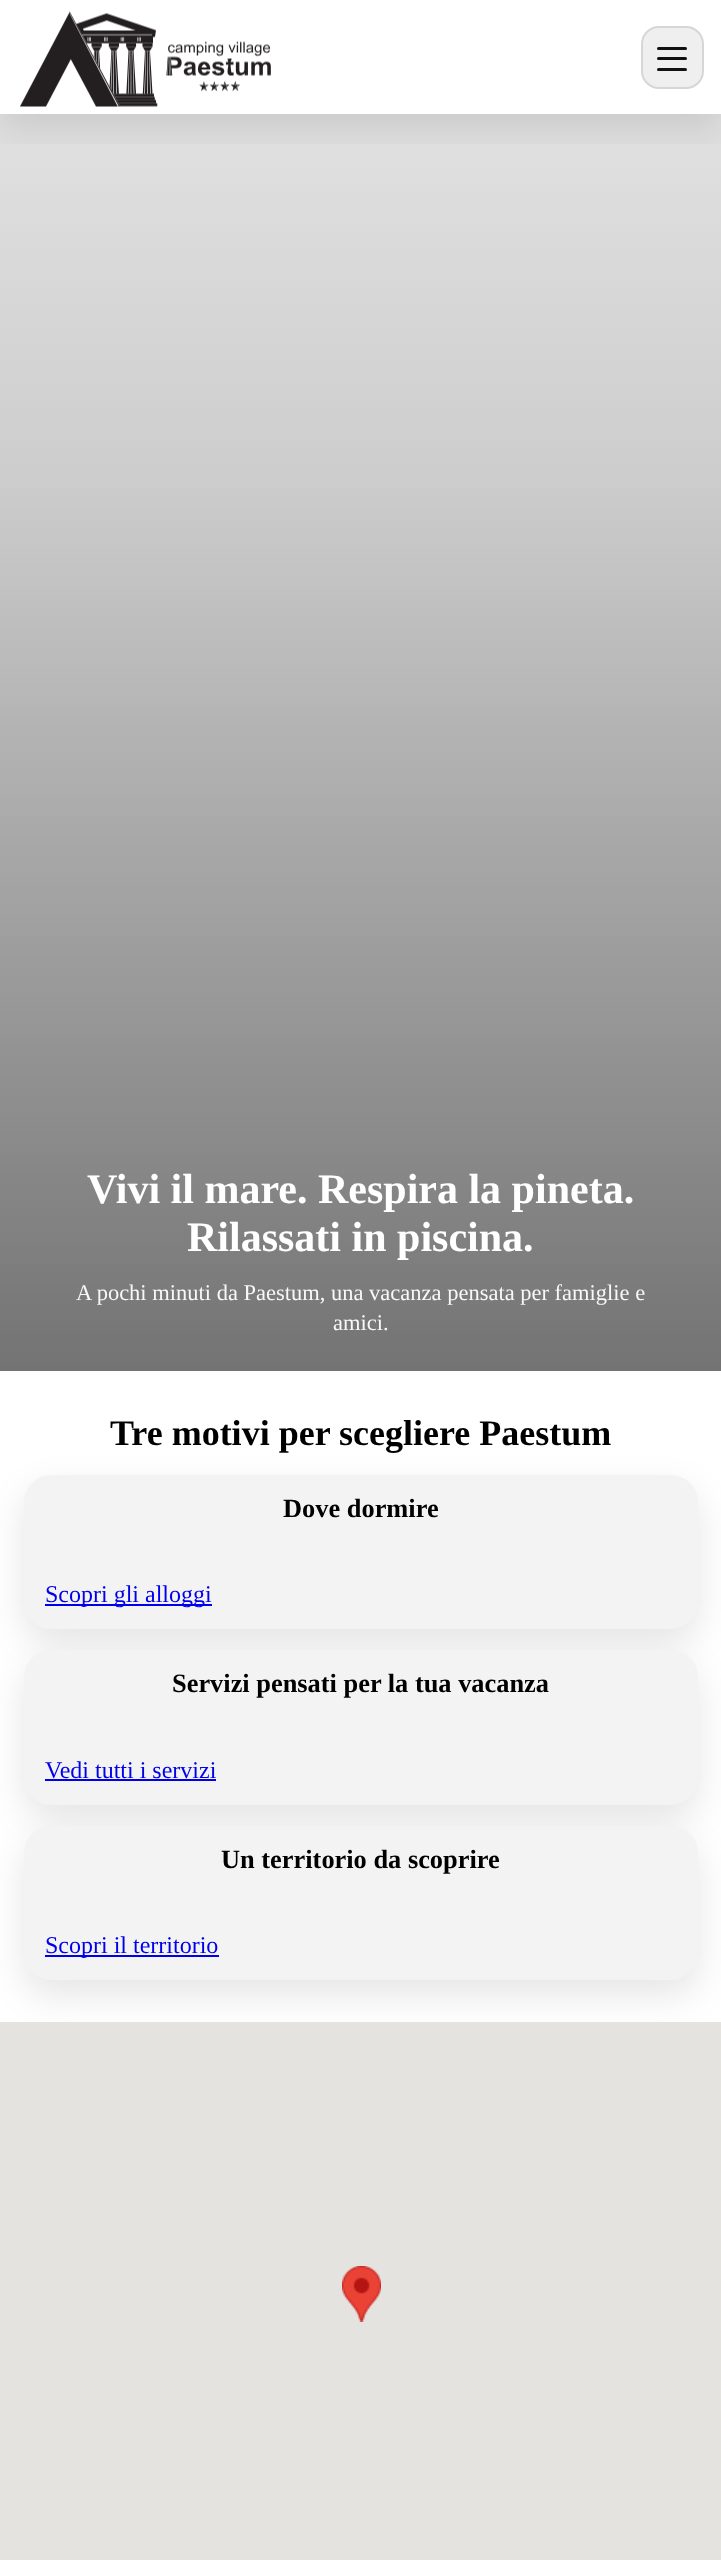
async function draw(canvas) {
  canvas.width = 721;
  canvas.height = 2560;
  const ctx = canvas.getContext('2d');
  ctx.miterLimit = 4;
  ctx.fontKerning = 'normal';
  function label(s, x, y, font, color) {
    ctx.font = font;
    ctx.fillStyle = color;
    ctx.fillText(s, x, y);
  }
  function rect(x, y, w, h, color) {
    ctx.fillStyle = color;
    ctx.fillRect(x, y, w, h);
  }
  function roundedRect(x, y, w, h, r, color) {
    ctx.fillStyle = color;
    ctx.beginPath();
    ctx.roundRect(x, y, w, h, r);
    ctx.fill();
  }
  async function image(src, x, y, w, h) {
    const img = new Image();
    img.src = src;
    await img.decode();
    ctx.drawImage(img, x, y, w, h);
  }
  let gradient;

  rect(0, 0, 721, 2560, '#fff');
  gradient = ctx.createLinearGradient(361, 1371, 361, -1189);
  gradient.addColorStop(0, '#737373');
  gradient.addColorStop(0.35, '#cdcdcd');
  gradient.addColorStop(0.7, '#fff');
  ctx.fillStyle = gradient;
  ctx.fillRect(0, 114, 721, 1257);
  ctx.save();
  ctx.beginPath();
  ctx.rect(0, 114, 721, 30);
  ctx.clip();
  ctx.fillStyle = '#0000001a';
  ctx.filter = 'blur(18px)';
  ctx.beginPath();
  ctx.rect(0, 15, 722, 114);
  ctx.fill();
  ctx.filter = 'none';
  ctx.restore();
  await image('assets/img1.png', 20, 11, 251, 96);
  roundedRect(641, 26, 63, 63, 18, '#efefef');
  ctx.beginPath();
  ctx.roundRect(642, 27, 61, 61, 17);
  ctx.strokeStyle = '#0000001a';
  ctx.lineWidth = 2;
  ctx.stroke();
  roundedRect(657, 47, 30, 3, 1.5, '#111');
  roundedRect(657, 57, 30, 3, 1.5, '#111');
  roundedRect(657, 68, 30, 3, 1.5, '#111');
  label('Vivi il mare. Respira la pineta.', 87, 1203, 'bold 42px Liberation Serif', '#fff');
  label('Rilassati in piscina.', 187, 1251, 'bold 42px Liberation Serif', '#fff');
  label('A pochi minuti da Paestum, una vacanza pensata per famiglie e', 76, 1300, '22.5px Liberation Serif', '#f8f8f8');
  label('amici.', 333, 1330, '22.5px Liberation Serif', '#f8f8f8');
  label('Tre motivi per scegliere Paestum', 110, 1445, 'bold 36px Liberation Serif', '#000');
  ctx.fillStyle = '#0000001a';
  ctx.filter = 'blur(18px)';
  ctx.beginPath();
  ctx.roundRect(24, 1490, 674, 154, 27);
  ctx.fill();
  ctx.filter = 'none';
  roundedRect(24, 1475, 674, 154, 27, '#f3f3f3');
  label('Dove dormire', 283, 1517, 'bold 26.4px Liberation Serif', '#000');
  rect(45, 1604, 167, 2, '#00e');
  label('Scopri gli alloggi', 45, 1602, '24px Liberation Serif', '#00e');
  ctx.fillStyle = '#0000001a';
  ctx.filter = 'blur(18px)';
  ctx.beginPath();
  ctx.roundRect(24, 1665, 674, 155, 27);
  ctx.fill();
  ctx.filter = 'none';
  roundedRect(24, 1650, 674, 155, 27, '#f3f3f3');
  label('Servizi pensati per la tua vacanza', 172, 1692, 'bold 26.4px Liberation Serif', '#000');
  label('Vedi tutti i servizi', 45, 1778, '24px Liberation Serif', '#00e');
  rect(45, 1779, 171, 2, '#00e');
  ctx.fillStyle = '#0000001a';
  ctx.filter = 'blur(18px)';
  ctx.beginPath();
  ctx.roundRect(24, 1841, 674, 154, 27);
  ctx.fill();
  ctx.filter = 'none';
  roundedRect(24, 1826, 674, 154, 27, '#f3f3f3');
  label('Un territorio da scoprire', 221, 1868, 'bold 26.4px Liberation Serif', '#000');
  rect(45, 1955, 174, 2, '#00e');
  label('Scopri il territorio', 45, 1953, '24px Liberation Serif', '#00e');
  rect(0, 2022, 721, 538, '#e5e3df');
  await image('assets/img2.png', 342, 2266, 39, 56);
}

draw(document.querySelector('canvas'));
